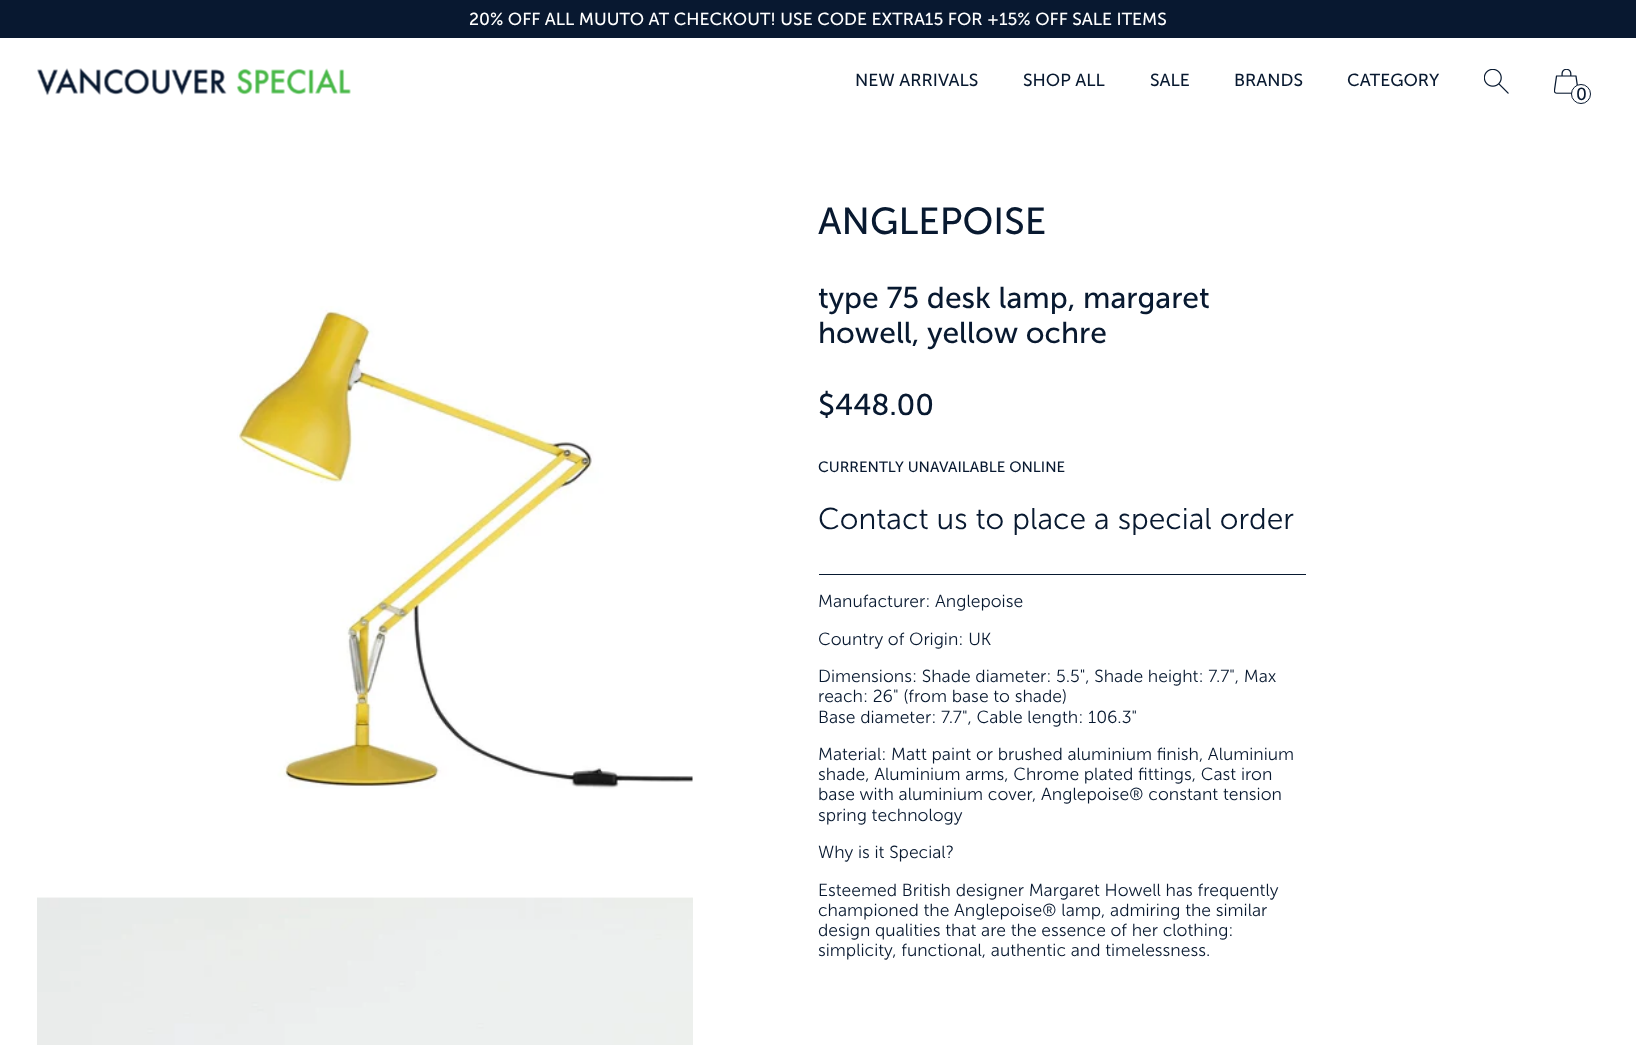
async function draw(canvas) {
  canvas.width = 1636;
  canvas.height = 1045;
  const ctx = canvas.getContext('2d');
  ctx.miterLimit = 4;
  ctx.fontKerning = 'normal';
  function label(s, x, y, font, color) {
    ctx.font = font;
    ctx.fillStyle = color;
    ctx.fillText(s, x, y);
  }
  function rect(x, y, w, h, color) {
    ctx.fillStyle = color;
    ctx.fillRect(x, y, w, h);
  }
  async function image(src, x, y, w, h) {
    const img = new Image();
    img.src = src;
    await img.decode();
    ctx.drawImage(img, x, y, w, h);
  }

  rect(0, 0, 1636, 1045, '#fff');
  rect(0, 0, 1636, 38, '#081830');
  label('20% OFF ALL MUUTO AT CHECKOUT! USE CODE EXTRA15 FOR +15% OFF SALE ITEMS', 469, 25, '17.5px "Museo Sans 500"', '#fff');
  await image('assets/img1.png', 37, 68, 314, 28);
  label('NEW ARRIVALS', 855, 86, '17.5px "Museo Sans 500"', '#081930');
  label('SHOP ALL', 1023, 86, '17.5px "Museo Sans 500"', '#081930');
  label('SALE', 1150, 86, '17.5px "Museo Sans 500"', '#081930');
  label('BRANDS', 1234, 86, '17.5px "Museo Sans 500"', '#081930');
  label('CATEGORY', 1347, 86, '17.5px "Museo Sans 500"', '#081930');
  await image('assets/img2.png', 1484, 69, 25, 25);
  await image('assets/img3.png', 1554, 69, 24, 25);
  ctx.fillStyle = '#fff';
  ctx.beginPath();
  ctx.arc(1581, 94, 9.5, 0, 2 * Math.PI);
  ctx.fill();
  ctx.strokeStyle = '#081930';
  ctx.stroke();
  label('0', 1576, 100, '17.5px "Museo Sans 500"', '#081930');
  await image('assets/img4.png', 237, 306, 456, 483);
  await image('assets/img5.png', 37, 897, 656, 148);
  label('ANGLEPOISE', 818, 234, '37.5px "Museo Sans 500"', '#081930');
  label('type 75 desk lamp, margaret', 818, 308, '30px "Museo Sans 500"', '#081930');
  label('howell, yellow ochre', 818, 343, '30px "Museo Sans 500"', '#081930');
  label('$448.00', 818, 415, '30px "Museo Sans 500"', '#081930');
  rect(819, 574, 487, 1, '#081930');
  label('CURRENTLY UNAVAILABLE ONLINE', 818, 472, '15px "Museo Sans 500"', '#081930');
  label('Contact us to place a special order', 818, 529, '300 30px "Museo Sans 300"', '#081930');
  label('Manufacturer: Anglepoise', 818, 607, '300 17.5px "Museo Sans 300"', '#081930');
  label('Country of Origin: UK', 818, 645, '300 17.5px "Museo Sans 300"', '#081930');
  label('Dimensions: Shade diameter: 5.5", Shade height: 7.7", Max', 818, 682, '300 17.5px "Museo Sans 300"', '#081930');
  label('reach: 26" (from base to shade)', 818, 702, '300 17.5px "Museo Sans 300"', '#081930');
  label('Base diameter: 7.7", Cable length: 106.3"', 818, 723, '300 17.5px "Museo Sans 300"', '#081930');
  label('Material: Matt paint or brushed aluminium finish, Aluminium', 818, 760, '300 17.5px "Museo Sans 300"', '#081930');
  label('shade, Aluminium arms, Chrome plated fittings, Cast iron', 818, 780, '300 17.5px "Museo Sans 300"', '#081930');
  label('base with aluminium cover, Anglepoise® constant tension', 818, 800, '300 17.5px "Museo Sans 300"', '#081930');
  label('spring technology', 818, 821, '300 17.5px "Museo Sans 300"', '#081930');
  label('Why is it Special?', 818, 858, '300 17.5px "Museo Sans 300"', '#081930');
  label('Esteemed British designer Margaret Howell has frequently', 818, 896, '300 17.5px "Museo Sans 300"', '#081930');
  label('championed the Anglepoise® lamp, admiring the similar', 818, 916, '300 17.5px "Museo Sans 300"', '#081930');
  label('design qualities that are the essence of her clothing:', 818, 936, '300 17.5px "Museo Sans 300"', '#081930');
  label('simplicity, functional, authentic and timelessness.', 818, 956, '300 17.5px "Museo Sans 300"', '#081930');
}

draw(document.querySelector('canvas'));
